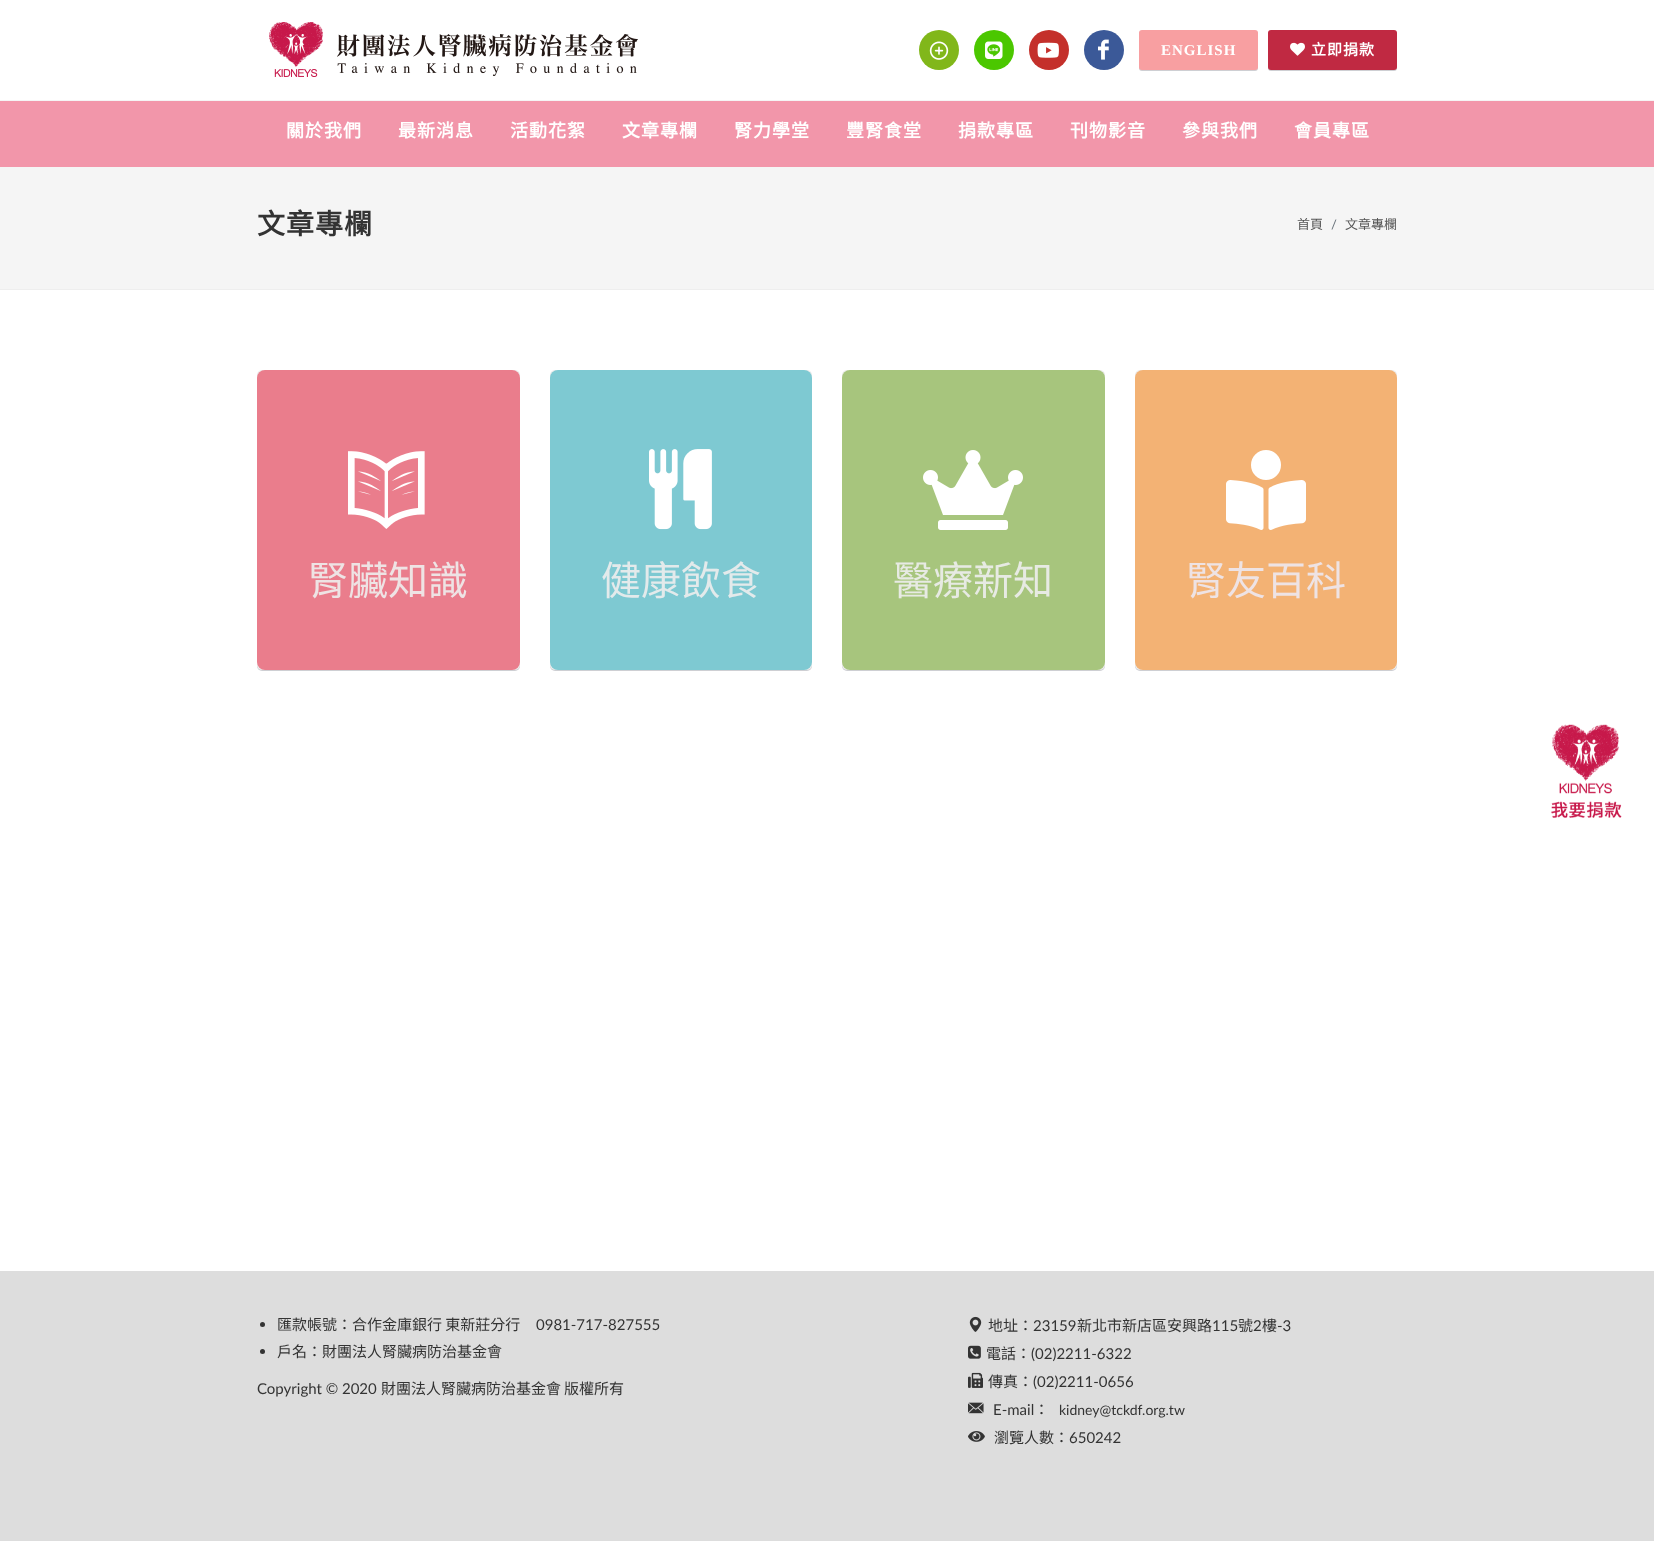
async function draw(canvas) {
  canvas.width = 1654;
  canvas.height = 1541;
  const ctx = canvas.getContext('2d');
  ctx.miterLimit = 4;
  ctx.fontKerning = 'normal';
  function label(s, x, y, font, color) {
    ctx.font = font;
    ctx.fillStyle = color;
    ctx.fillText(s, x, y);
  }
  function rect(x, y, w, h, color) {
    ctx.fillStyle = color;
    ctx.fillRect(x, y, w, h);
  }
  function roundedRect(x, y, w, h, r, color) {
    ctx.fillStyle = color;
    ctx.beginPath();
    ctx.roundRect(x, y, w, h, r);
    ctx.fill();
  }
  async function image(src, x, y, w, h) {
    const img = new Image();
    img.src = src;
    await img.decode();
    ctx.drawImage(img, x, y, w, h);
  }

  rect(0, 0, 1654, 1541, '#fff');
  await image('assets/img1.png', 269, 22, 369, 55);
  ctx.fillStyle = '#81b71a';
  ctx.beginPath();
  ctx.arc(939, 50, 20, 0, 2 * Math.PI);
  ctx.fill();
  await image('assets/img2.png', 929, 41, 20, 19);
  ctx.fillStyle = '#4bc700';
  ctx.beginPath();
  ctx.arc(994, 50, 20, 0, 2 * Math.PI);
  ctx.fill();
  await image('assets/img3.png', 985, 41, 18, 18);
  ctx.fillStyle = '#c4302b';
  ctx.beginPath();
  ctx.arc(1049, 50, 20, 0, 2 * Math.PI);
  ctx.fill();
  await image('assets/img4.png', 1037, 42, 22, 16);
  ctx.fillStyle = '#3b5998';
  ctx.beginPath();
  ctx.arc(1104, 50, 20, 0, 2 * Math.PI);
  ctx.fill();
  await image('assets/img5.png', 1098, 39, 11, 21);
  ctx.fillStyle = '#0a102233';
  ctx.filter = 'blur(0.5px)';
  ctx.beginPath();
  ctx.roundRect(1139, 31, 119, 40, 3);
  ctx.fill();
  ctx.filter = 'none';
  roundedRect(1139, 30, 119, 40, 3, '#f89fa1');
  ctx.letterSpacing = '1px';
  label('ENGLISH', 1161, 55, 'bold 15px Liberation Serif', '#fff');
  ctx.fillStyle = '#0a102233';
  ctx.filter = 'blur(0.5px)';
  ctx.beginPath();
  ctx.roundRect(1268, 31, 129, 40, 3);
  ctx.fill();
  ctx.filter = 'none';
  roundedRect(1268, 30, 129, 40, 3, '#c02942');
  await image('assets/img6.png', 1290, 42, 15, 14);
  label('立即捐款', 1311, 55, 'bold 15px Noto Sans CJK TC', '#fff');
  rect(0, 101, 1654, 66, '#f296aa');
  rect(0, 100, 1654, 1, '#f5f5f5');
  label('關於我們', 286, 137, 'bold 18px Noto Sans CJK TC', '#fff');
  label('最新消息', 398, 137, 'bold 18px Noto Sans CJK TC', '#fff');
  label('活動花絮', 510, 137, 'bold 18px Noto Sans CJK TC', '#fff');
  label('文章專欄', 622, 137, 'bold 18px Noto Sans CJK TC', '#fff');
  label('腎力學堂', 734, 137, 'bold 18px Noto Sans CJK TC', '#fff');
  label('豐腎食堂', 846, 137, 'bold 18px Noto Sans CJK TC', '#fff');
  label('捐款專區', 958, 137, 'bold 18px Noto Sans CJK TC', '#fff');
  label('刊物影音', 1070, 137, 'bold 18px Noto Sans CJK TC', '#fff');
  label('參與我們', 1182, 137, 'bold 18px Noto Sans CJK TC', '#fff');
  label('會員專區', 1294, 137, 'bold 18px Noto Sans CJK TC', '#fff');
  rect(0, 167, 1654, 122, '#f5f5f5');
  rect(0, 289, 1654, 1, '#eee');
  label('文章專欄', 257, 234, 'bold 28px Noto Sans CJK TC', '#333');
  ctx.letterSpacing = '0px';
  label('首頁', 1297, 229, '13px Noto Sans CJK TC', '#555');
  label('/', 1331, 229, '13px Lato', '#6c757d');
  label('文章專欄', 1345, 229, '13px Noto Sans CJK TC', '#555');
  ctx.fillStyle = '#0a102233';
  ctx.filter = 'blur(0.5px)';
  ctx.beginPath();
  ctx.roundRect(257, 371, 263, 300, 5);
  ctx.fill();
  ctx.filter = 'none';
  roundedRect(257, 370, 263, 300, 5, '#eee');
  roundedRect(257, 370, 263, 300, 8, '#ea7d8c');
  await image('assets/img7.png', 348, 451, 77, 78);
  label('腎臟知識', 308, 595, '40px Noto Sans CJK TC', '#eee3e4');
  ctx.fillStyle = '#0a102233';
  ctx.filter = 'blur(0.5px)';
  ctx.beginPath();
  ctx.roundRect(550, 371, 262, 300, 5);
  ctx.fill();
  ctx.filter = 'none';
  roundedRect(550, 370, 262, 300, 5, '#eee');
  roundedRect(550, 370, 262, 300, 8, '#7ec9d2');
  await image('assets/img8.png', 649, 449, 63, 81);
  label('健康飲食', 601, 595, '40px Noto Sans CJK TC', '#e3eaeb');
  ctx.fillStyle = '#0a102233';
  ctx.filter = 'blur(0.5px)';
  ctx.beginPath();
  ctx.roundRect(842, 371, 263, 300, 5);
  ctx.fill();
  ctx.filter = 'none';
  roundedRect(842, 370, 263, 300, 5, '#eee');
  roundedRect(842, 370, 263, 300, 8, '#a7c57d');
  await image('assets/img9.png', 923, 450, 100, 80);
  label('醫療新知', 893, 595, '40px Noto Sans CJK TC', '#e7eae3');
  ctx.fillStyle = '#0a102233';
  ctx.filter = 'blur(0.5px)';
  ctx.beginPath();
  ctx.roundRect(1135, 371, 262, 300, 5);
  ctx.fill();
  ctx.filter = 'none';
  roundedRect(1135, 370, 262, 300, 5, '#eee');
  roundedRect(1135, 370, 262, 300, 8, '#f3b274');
  await image('assets/img10.png', 1226, 450, 80, 80);
  label('腎友百科', 1186, 595, '40px Noto Sans CJK TC', '#eee3e4');
  rect(0, 1271, 1654, 270, '#ddd');
  ctx.fillStyle = '#333';
  ctx.beginPath();
  ctx.arc(262.5, 1324.5, 2.5, 0, 2 * Math.PI);
  ctx.fill();
  label('匯款帳號：合作金庫銀行 東新莊分行', 277, 1330, '15px Noto Sans CJK TC', '#333');
  label('0981-717-827555', 536, 1330, '15px Lato', '#333');
  ctx.beginPath();
  ctx.arc(262.5, 1351.5, 2.5, 0, 2 * Math.PI);
  ctx.fill();
  label('戶名：財團法人腎臟病防治基金會', 277, 1357, '15px Noto Sans CJK TC', '#333');
  label('Copyright © 2020', 257, 1394, '15px Lato', '#333');
  label('財團法人腎臟病防治基金會', 381, 1394, '15px Noto Sans CJK TC', '#333');
  label('版權所有', 564, 1394, '15px Noto Sans CJK TC', '#333');
  await image('assets/img11.png', 969, 1316, 13, 16);
  label('地址：', 988, 1331, '15px Noto Sans CJK TC', '#333');
  label('23159', 1033, 1331, '15px Lato', '#333');
  label('新北市新店區安興路', 1077, 1331, '15px Noto Sans CJK TC', '#333');
  label('115', 1212, 1331, '15px Lato', '#333');
  label('號', 1238, 1331, '15px Noto Sans CJK TC', '#333');
  label('2', 1253, 1331, '15px Lato', '#333');
  label('樓', 1262, 1331, '15px Noto Sans CJK TC', '#333');
  label('-3', 1277, 1331, '15px Lato', '#333');
  await image('assets/img12.png', 968, 1345, 13, 14);
  label('電話：', 986, 1359, '15px Noto Sans CJK TC', '#333');
  label('(02)2211-6322', 1031, 1359, '15px Lato', '#333');
  await image('assets/img13.png', 968, 1372, 15, 16);
  label('傳真：', 988, 1387, '15px Noto Sans CJK TC', '#333');
  label('(02)2211-0656', 1033, 1387, '15px Lato', '#333');
  await image('assets/img14.png', 968, 1402, 16, 12);
  label('E-mail', 993, 1415, '15px Lato', '#333');
  label('：', 1034, 1415, '15px Noto Sans CJK TC', '#333');
  label('kidney@tckdf.org.tw', 1059, 1415, '14px Lato', '#333');
  await image('assets/img15.png', 968, 1431, 17, 11);
  label('瀏覽人數：', 994, 1443, '15px Noto Sans CJK TC', '#333');
  label('650242', 1069, 1443, '15px Lato', '#333');
  await image('assets/img16.png', 1551, 724, 71, 94);
}

draw(document.querySelector('canvas'));
